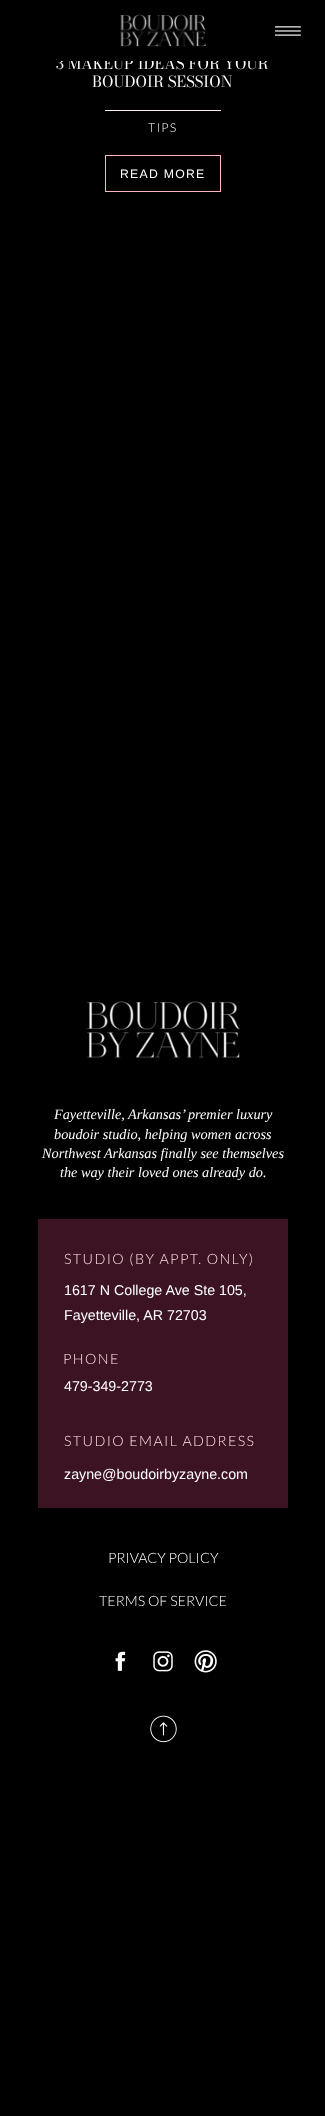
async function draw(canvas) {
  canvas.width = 325;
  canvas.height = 2116;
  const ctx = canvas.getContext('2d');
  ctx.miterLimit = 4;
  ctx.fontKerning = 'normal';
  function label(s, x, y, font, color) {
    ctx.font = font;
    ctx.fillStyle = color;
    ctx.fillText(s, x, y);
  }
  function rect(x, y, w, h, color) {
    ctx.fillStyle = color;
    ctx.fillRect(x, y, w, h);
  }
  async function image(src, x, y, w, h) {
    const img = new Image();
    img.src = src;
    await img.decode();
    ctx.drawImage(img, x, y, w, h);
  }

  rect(0, 0, 325, 2116, '#000');
  label('3 MAKEUP IDEAS FOR YOUR', 56, 69, '15.25px Bodoni Moda', '#fff');
  rect(57, 57, 210, 4, '#000');
  await image('assets/img1.png', 120, 14, 86, 33);
  await image('assets/img2.png', 275, 26, 26, 10);
  label('BOUDOIR SESSION', 92, 87, '15.25px Bodoni Moda', '#fff');
  rect(105, 110, 116, 1, '#ffecef');
  ctx.letterSpacing = '1.25px';
  label('TIPS', 148, 132, '300 12.25px Lato', '#fff');
  ctx.strokeStyle = '#ffb6c1';
  ctx.strokeRect(105.5, 155.5, 115, 36);
  label('READ MORE', 120, 178, '12.25px Liberation Sans', '#fff');
  await image('assets/img3.png', 86, 1001, 155, 58);
  ctx.letterSpacing = '0px';
  label('Fayetteville, Arkansas’ premier luxury', 54, 1119, 'italic 14.25px Liberation Serif', '#fff');
  label('boudoir studio, helping women across', 54, 1139, 'italic 14.25px Liberation Serif', '#fff');
  label('Northwest Arkansas finally see themselves', 42, 1158, 'italic 14.25px Liberation Serif', '#fff');
  label('the way their loved ones already do.', 60, 1177, 'italic 14.25px Liberation Serif', '#fff');
  rect(38, 1219, 250, 289, '#3c1323');
  ctx.letterSpacing = '1.4px';
  label('STUDIO (BY APPT. ONLY)', 64, 1264, '300 14.25px Lato', '#ffe0e4');
  ctx.letterSpacing = '0px';
  label('1617 N College Ave Ste 105,', 64, 1295, '14.25px Liberation Sans', '#fff');
  label('Fayetteville, AR 72703', 64, 1320, '14.25px Liberation Sans', '#fff');
  ctx.letterSpacing = '1.4px';
  label('PHONE', 63, 1364, '300 14.25px Lato', '#ffe0e4');
  ctx.letterSpacing = '0px';
  label('479-349-2773', 64, 1391, '14.25px Liberation Sans', '#fff');
  ctx.letterSpacing = '1.4px';
  label('STUDIO EMAIL ADDRESS', 64, 1446, '300 14.25px Lato', '#ffe0e4');
  ctx.letterSpacing = '0px';
  label('zayne@boudoirbyzayne.com', 64, 1479, '14.25px Liberation Sans', '#fff');
  label('PRIVACY POLICY', 108, 1563, '300 14.25px Lato', '#fff');
  label('TERMS OF SERVICE', 99, 1606, '300 14.25px Lato', '#fff');
  await image('assets/img4.png', 115, 1651, 11, 20);
  await image('assets/img5.png', 153, 1651, 20, 21);
  await image('assets/img6.png', 194, 1650, 23, 23);
  await image('assets/img7.png', 150, 1715, 27, 28);
}

draw(document.querySelector('canvas'));
